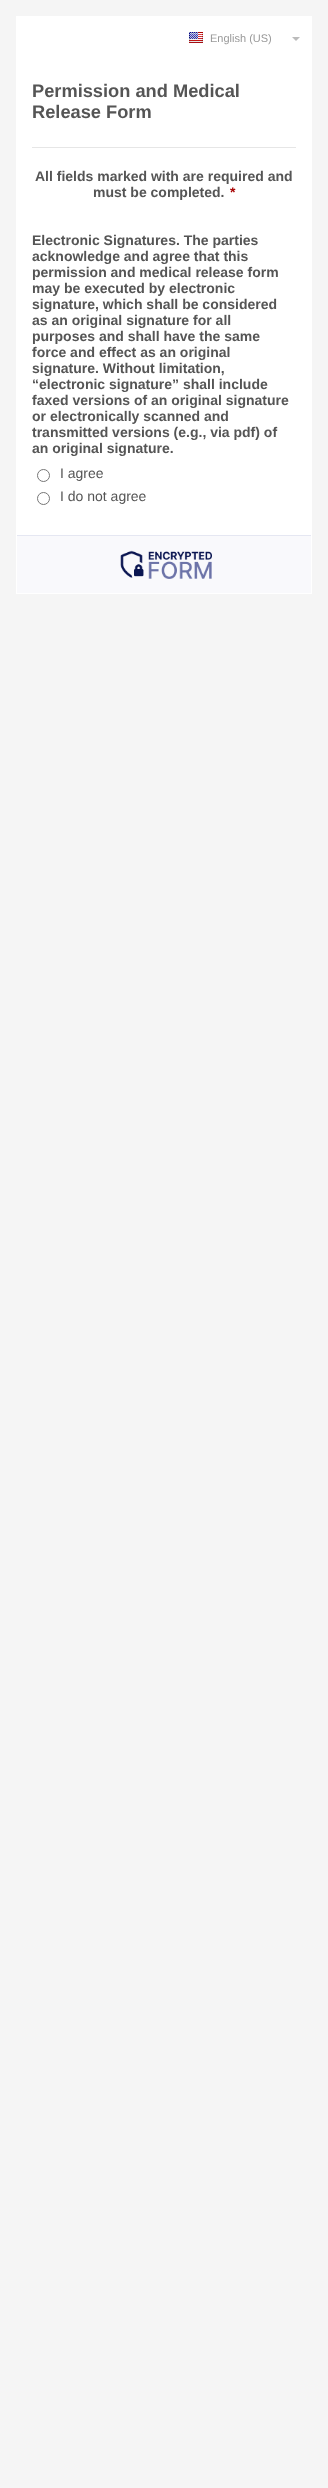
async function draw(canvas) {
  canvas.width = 328;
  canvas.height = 2488;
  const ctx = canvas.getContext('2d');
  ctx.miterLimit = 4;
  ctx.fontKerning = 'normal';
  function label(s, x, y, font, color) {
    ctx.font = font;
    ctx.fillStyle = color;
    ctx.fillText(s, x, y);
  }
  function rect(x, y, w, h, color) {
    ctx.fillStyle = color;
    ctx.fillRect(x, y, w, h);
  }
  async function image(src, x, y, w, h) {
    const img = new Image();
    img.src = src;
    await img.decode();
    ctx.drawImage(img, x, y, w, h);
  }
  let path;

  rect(0, 0, 328, 2488, '#f5f5f5');
  rect(16, 16, 296, 578, '#fff');
  await image('assets/img1.png', 189, 32, 14, 11);
  label('English (US)', 210, 42, '11px Liberation Sans', '#999');
  ctx.fillStyle = '#bbb';
  path = new Path2D('M292 37H300L296 41Z');
  ctx.fill(path);
  rect(32, 147, 264, 1, '#e6e6e6');
  label('Permission and Medical', 32, 97, 'bold 18.25px Liberation Sans', '#555');
  label('Release Form', 32, 118, 'bold 18.25px Liberation Sans', '#555');
  label('All fields marked with are required and', 35, 181, 'bold 14px Liberation Sans', '#555');
  label('must be completed.', 93, 197, 'bold 14px Liberation Sans', '#555');
  label('*', 230, 197, 'bold 14px Liberation Sans', '#a70000');
  label('Electronic Signatures. The parties', 32, 245, 'bold 14px Liberation Sans', '#555');
  label('acknowledge and agree that this', 32, 261, 'bold 14px Liberation Sans', '#555');
  label('permission and medical release form', 32, 277, 'bold 14px Liberation Sans', '#555');
  label('may be executed by electronic', 32, 293, 'bold 14px Liberation Sans', '#555');
  label('signature, which shall be considered', 32, 309, 'bold 14px Liberation Sans', '#555');
  label('as an original signature for all', 32, 325, 'bold 14px Liberation Sans', '#555');
  label('purposes and shall have the same', 32, 341, 'bold 14px Liberation Sans', '#555');
  label('force and effect as an original', 32, 357, 'bold 14px Liberation Sans', '#555');
  label('signature. Without limitation,', 32, 373, 'bold 14px Liberation Sans', '#555');
  label('“electronic signature” shall include', 32, 389, 'bold 14px Liberation Sans', '#555');
  label('faxed versions of an original signature', 32, 405, 'bold 14px Liberation Sans', '#555');
  label('or electronically scanned and', 32, 421, 'bold 14px Liberation Sans', '#555');
  label('transmitted versions (e.g., via pdf) of', 32, 437, 'bold 14px Liberation Sans', '#555');
  label('an original signature.', 32, 453, 'bold 14px Liberation Sans', '#555');
  ctx.beginPath();
  ctx.arc(43.5, 475.5, 6, 0, 2 * Math.PI);
  ctx.strokeStyle = '#767676';
  ctx.stroke();
  label('I agree', 60, 478, '14px Liberation Sans', '#555');
  ctx.beginPath();
  ctx.arc(43.5, 498.5, 6, 0, 2 * Math.PI);
  ctx.stroke();
  label('I do not agree', 60, 501, '14px Liberation Sans', '#555');
  rect(17, 536, 294, 57, '#f9f9fc');
  rect(17, 535, 294, 1, '#e5e7f2');
  await image('assets/img2.png', 120, 550, 92, 29);
}

draw(document.querySelector('canvas'));
